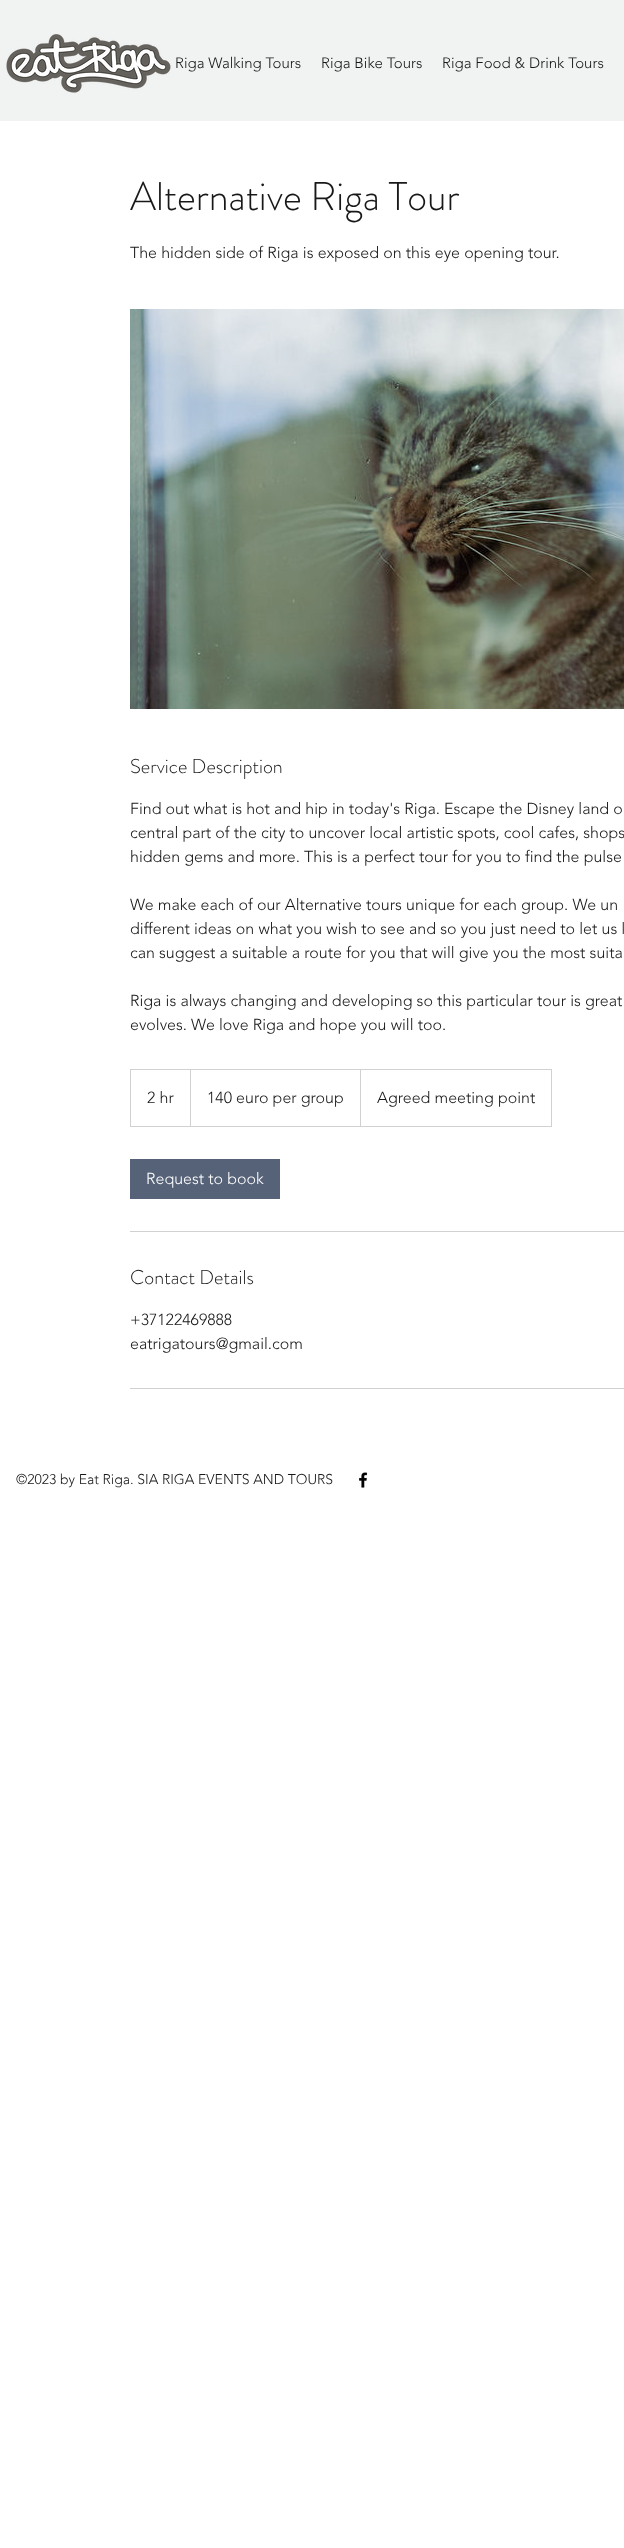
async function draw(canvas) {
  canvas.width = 624;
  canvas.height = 2548;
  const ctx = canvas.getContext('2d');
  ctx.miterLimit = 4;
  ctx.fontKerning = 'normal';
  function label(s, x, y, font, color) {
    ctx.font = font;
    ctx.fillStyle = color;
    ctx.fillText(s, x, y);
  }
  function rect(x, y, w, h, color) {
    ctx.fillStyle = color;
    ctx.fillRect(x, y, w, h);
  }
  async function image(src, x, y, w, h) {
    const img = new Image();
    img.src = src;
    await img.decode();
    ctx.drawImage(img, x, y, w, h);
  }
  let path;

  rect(0, 0, 624, 2548, '#fff');
  rect(0, 0, 624, 121, '#f1f2f2');
  await image('assets/img1.png', 6, 34, 165, 59);
  label('Riga Walking Tours', 175, 68, '300 15px "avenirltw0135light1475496"', '#181818');
  label('Riga Bike Tours', 321, 68, '300 15px "avenirltw0135light1475496"', '#181818');
  label('Riga Food & Drink Tours', 442, 68, '300 15px "avenirltw0135light1475496"', '#181818');
  label('Alternative Riga Tour', 130, 210, '300 40px "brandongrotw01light"', '#181818');
  label('The hidden side of Riga is exposed on this eye opening tour.', 130, 258, '300 16px "avenirltw0135light1475496"', '#181818');
  await image('assets/img2.png', 130, 309, 494, 400);
  label('Service Description', 130, 773, '300 20px "brandongrotw01light"', '#181818');
  label('Find out what is hot and hip in today\'s Riga. Escape the Disney land o', 130, 814, '300 16px "avenirltw0135light1475496"', '#181818');
  label('central part of the city to uncover local artistic spots, cool cafes, shops', 130, 838, '300 16px "avenirltw0135light1475496"', '#181818');
  label('hidden gems and more. This is a perfect tour for you to find the pulse', 130, 862, '300 16px "avenirltw0135light1475496"', '#181818');
  label('We make each of our Alternative tours unique for each group. We un', 130, 910, '300 16px "avenirltw0135light1475496"', '#181818');
  label('different ideas on what you wish to see and so you just need to let us k', 130, 934, '300 16px "avenirltw0135light1475496"', '#181818');
  label('can suggest a suitable a route for you that will give you the most suita', 130, 958, '300 16px "avenirltw0135light1475496"', '#181818');
  label('Riga is always changing and developing so this particular tour is great', 130, 1006, '300 16px "avenirltw0135light1475496"', '#181818');
  label('evolves. We love Riga and hope you will too.', 130, 1030, '300 16px "avenirltw0135light1475496"', '#181818');
  ctx.strokeStyle = '#d1d1d1';
  ctx.strokeRect(130.5, 1069.5, 421, 57);
  label('2 hr', 147, 1103, '300 16px "avenirltw0135light1475496"', '#181818');
  ctx.fillStyle = '#d1d1d1';
  path = new Path2D('M190 1126V1069L191 1070V1126Z');
  ctx.fill(path);
  label('140 euro per group', 207, 1103, '300 16px "avenirltw0135light1475496"', '#181818');
  ctx.fillStyle = '#d1d1d1';
  path = new Path2D('M360 1126V1069L361 1070V1126Z');
  ctx.fill(path);
  label('Agreed meeting point', 377, 1103, '300 16px "avenirltw0135light1475496"', '#181818');
  rect(130, 1159, 150, 40, '#566278');
  label('Request to book', 146, 1184, '300 16px "avenirltw0135light1475496"', '#fff');
  rect(130, 1231, 494, 1, '#d1d1d1');
  label('Contact Details', 130, 1284, '300 20px "brandongrotw01light"', '#181818');
  label('+37122469888', 130, 1325, '300 16px "avenirltw0135light1475496"', '#181818');
  label('eatrigatours@gmail.com', 130, 1349, '300 16px "avenirltw0135light1475496"', '#181818');
  rect(130, 1388, 494, 1, '#d1d1d1');
  label('©2023 by Eat Riga. SIA RIGA EVENTS AND TOURS', 16, 1484, '300 14px "avenirltw0135light1475496"', '#181818');
  await image('assets/img3.png', 359, 1472, 9, 16);
}

draw(document.querySelector('canvas'));
